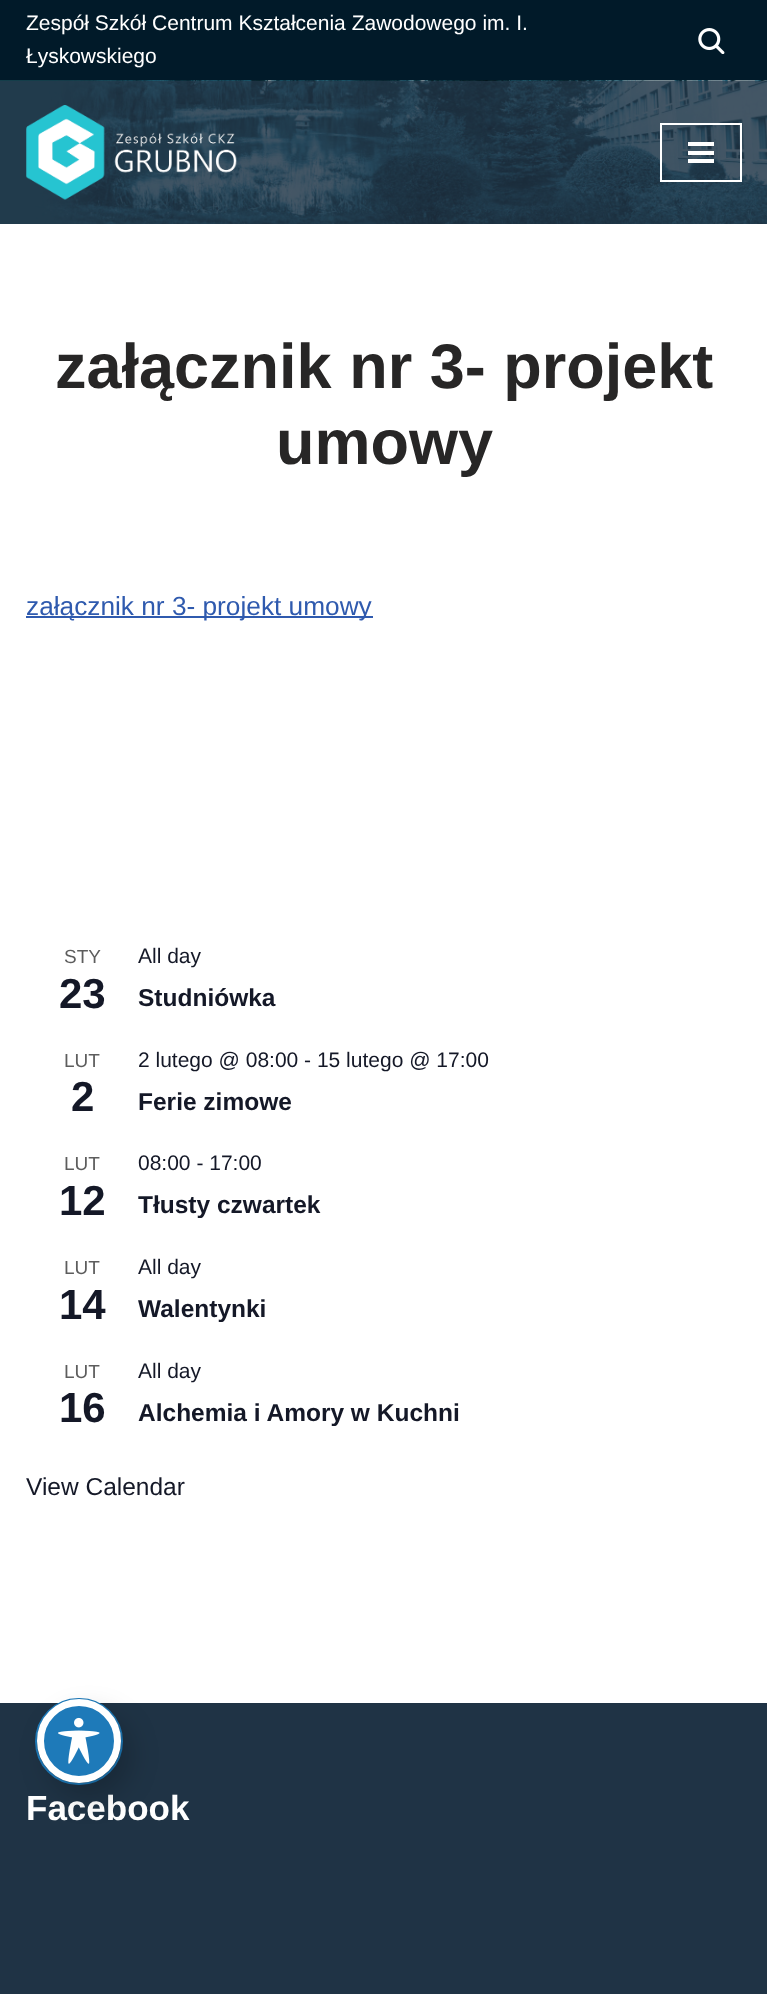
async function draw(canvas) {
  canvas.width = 767;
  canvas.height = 1994;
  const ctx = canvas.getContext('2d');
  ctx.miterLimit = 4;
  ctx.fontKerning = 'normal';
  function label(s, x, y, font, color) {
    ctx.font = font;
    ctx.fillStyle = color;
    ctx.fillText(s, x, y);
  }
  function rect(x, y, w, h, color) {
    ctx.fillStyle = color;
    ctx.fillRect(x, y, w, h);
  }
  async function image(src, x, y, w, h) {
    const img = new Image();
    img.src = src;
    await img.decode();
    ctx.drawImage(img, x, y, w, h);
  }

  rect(0, 0, 767, 1994, '#fff');
  rect(0, 0, 767, 81, '#011a29');
  label('Zespół Szkół Centrum Kształcenia Zawodowego im. I.', 26, 30, '21px Liberation Sans', '#fff');
  label('Łyskowskiego', 26, 63, '21px Liberation Sans', '#fff');
  await image('assets/img1.png', 698, 28, 27, 26);
  await image('assets/img2.png', 0, 80, 767, 144);
  await image('assets/img3.png', 26, 105, 211, 95);
  ctx.strokeStyle = '#fff';
  ctx.lineWidth = 2;
  ctx.strokeRect(661, 124, 80, 57);
  rect(688, 142, 26, 4, '#fff');
  rect(688, 151, 26, 4, '#fff');
  rect(688, 159, 26, 4, '#fff');
  label('załącznik nr 3- projekt', 55, 388, 'bold 63px Liberation Sans', '#272626');
  label('umowy', 276, 464, 'bold 63px Liberation Sans', '#272626');
  rect(26, 616, 347, 2, '#2f5aae');
  label('załącznik nr 3- projekt umowy', 26, 615, '26.25px Liberation Sans', '#2f5aae');
  label('STY', 64, 963, '19px Liberation Sans', '#5d5d5d');
  label('23', 59, 1008, 'bold 42px Liberation Sans', '#141827');
  label('All day', 138, 963, '21px Liberation Sans', '#141827');
  label('Studniówka', 138, 1006, 'bold 24.5px Liberation Sans', '#141827');
  label('LUT', 64, 1067, '19px Liberation Sans', '#5d5d5d');
  label('2', 71, 1111, 'bold 42px Liberation Sans', '#141827');
  label('2 lutego @ 08:00 - 15 lutego @ 17:00', 138, 1067, '21px Liberation Sans', '#141827');
  label('Ferie zimowe', 138, 1110, 'bold 24.5px Liberation Sans', '#141827');
  label('LUT', 64, 1170, '19px Liberation Sans', '#5d5d5d');
  label('12', 59, 1215, 'bold 42px Liberation Sans', '#141827');
  label('08:00 - 17:00', 138, 1170, '21px Liberation Sans', '#141827');
  label('Tłusty czwartek', 138, 1213, 'bold 24.5px Liberation Sans', '#141827');
  label('LUT', 64, 1274, '19px Liberation Sans', '#5d5d5d');
  label('14', 59, 1319, 'bold 42px Liberation Sans', '#141827');
  label('All day', 138, 1274, '21px Liberation Sans', '#141827');
  label('Walentynki', 138, 1317, 'bold 24.5px Liberation Sans', '#141827');
  label('LUT', 64, 1378, '19px Liberation Sans', '#5d5d5d');
  label('16', 59, 1422, 'bold 42px Liberation Sans', '#141827');
  label('All day', 138, 1378, '21px Liberation Sans', '#141827');
  label('Alchemia i Amory w Kuchni', 138, 1421, 'bold 24.5px Liberation Sans', '#141827');
  label('View Calendar', 26, 1495, '24.5px Liberation Sans', '#141827');
  rect(0, 1703, 767, 291, '#1f3345');
  label('Facebook', 26, 1820, 'bold 35px Liberation Sans', '#fff');
  ctx.beginPath();
  ctx.roundRect(36, 1699, 86, 85, 42.5);
  ctx.strokeStyle = '#1e7ab9';
  ctx.stroke();
  ctx.fillStyle = '#00000033';
  ctx.filter = 'blur(14px)';
  ctx.beginPath();
  ctx.roundRect(47, 1713, 84, 84, 42);
  ctx.fill();
  ctx.filter = 'none';
  ctx.fillStyle = '#1e7ab9';
  ctx.beginPath();
  ctx.arc(79, 1741, 38.5, 0, 2 * Math.PI);
  ctx.fill();
  ctx.strokeStyle = '#fff';
  ctx.lineWidth = 7;
  ctx.stroke();
  await image('assets/img4.png', 58, 1717, 42, 47);
}

draw(document.querySelector('canvas'));
